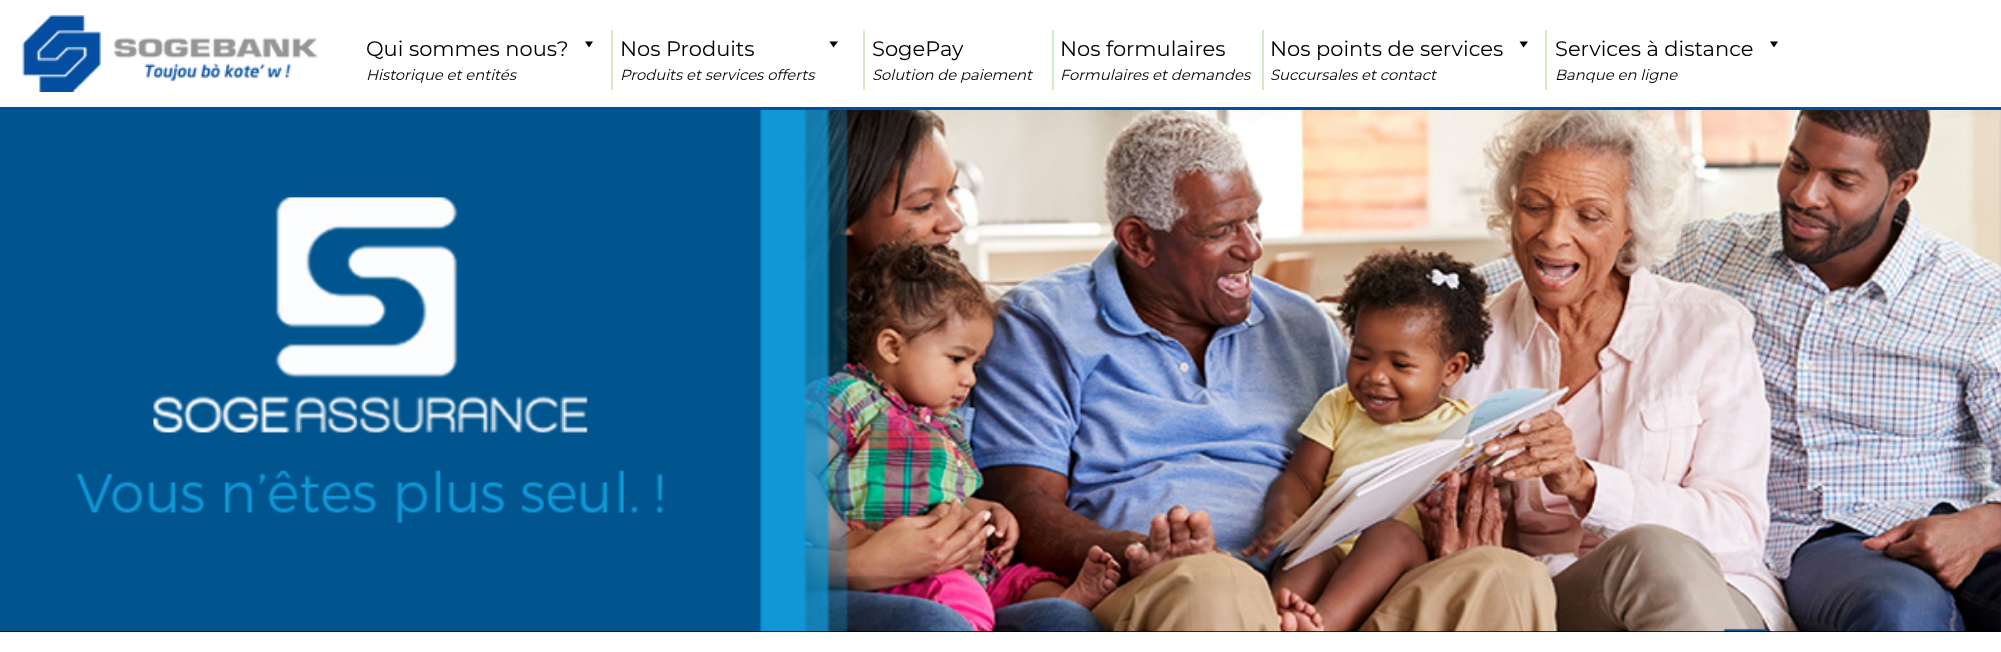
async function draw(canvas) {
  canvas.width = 2001;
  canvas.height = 652;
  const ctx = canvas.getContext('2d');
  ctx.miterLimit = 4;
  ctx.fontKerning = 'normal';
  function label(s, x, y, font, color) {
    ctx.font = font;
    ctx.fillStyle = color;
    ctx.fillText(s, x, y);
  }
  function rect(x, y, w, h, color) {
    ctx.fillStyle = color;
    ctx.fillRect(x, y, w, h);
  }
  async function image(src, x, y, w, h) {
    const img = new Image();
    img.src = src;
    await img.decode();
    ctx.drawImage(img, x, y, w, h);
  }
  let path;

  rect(0, 0, 2001, 652, '#000');
  rect(0, 0, 2001, 107, '#fff');
  rect(0, 107, 2001, 3, '#034e9e');
  await image('assets/img1.png', 22, 15, 296, 77);
  label('Qui sommes nous?', 366, 56, '21px Montserrat', '#000');
  label('Historique et entités', 366, 80, 'italic 14.75px Montserrat', '#000');
  path = new Path2D('M593 41.5L589 47.5L585 41.5Z');
  ctx.fill(path);
  rect(611, 30, 2, 60, '#d4e8c1');
  rect(612, 30, 1, 60, '#ffffff1a');
  label('Nos Produits', 620, 56, '21px Montserrat', '#000');
  label('Produits et services offerts', 620, 80, 'italic 14.75px Montserrat', '#000');
  path = new Path2D('M838 41.5L833.5 47.5L829.5 41.5Z');
  ctx.fill(path);
  rect(863, 30, 2, 60, '#d4e8c1');
  rect(864, 30, 1, 60, '#ffffff1a');
  label('SogePay', 872, 56, '21px Montserrat', '#000');
  label('Solution de paiement', 872, 80, 'italic 14.75px Montserrat', '#000');
  rect(1052, 30, 1, 60, '#d4e8c1');
  rect(1053, 30, 1, 60, '#d8eac7');
  label('Nos formulaires', 1060, 56, '21px Montserrat', '#000');
  label('Formulaires et demandes', 1060, 80, 'italic 14.75px Montserrat', '#000');
  rect(1262, 30, 2, 60, '#d4e8c1');
  rect(1263, 30, 1, 60, '#ffffff1a');
  label('Nos points de services', 1270, 56, '21px Montserrat', '#000');
  label('Succursales et contact', 1270, 80, 'italic 14.75px Montserrat', '#000');
  path = new Path2D('M1528 41.5L1523.5 47.5L1519.5 41.5Z');
  ctx.fill(path);
  rect(1545, 30, 2, 60, '#d4e8c1');
  label('Services à distance', 1555, 56, '21px Montserrat', '#000');
  label('Banque en ligne', 1555, 80, 'italic 14.75px Montserrat', '#000');
  path = new Path2D('M1778 41.5L1774 47.5L1770 41.5Z');
  ctx.fill(path);
  await image('assets/img2.png', 0, 110, 2001, 522);
  rect(0, 632, 2001, 20, '#fff');
}

draw(document.querySelector('canvas'));
